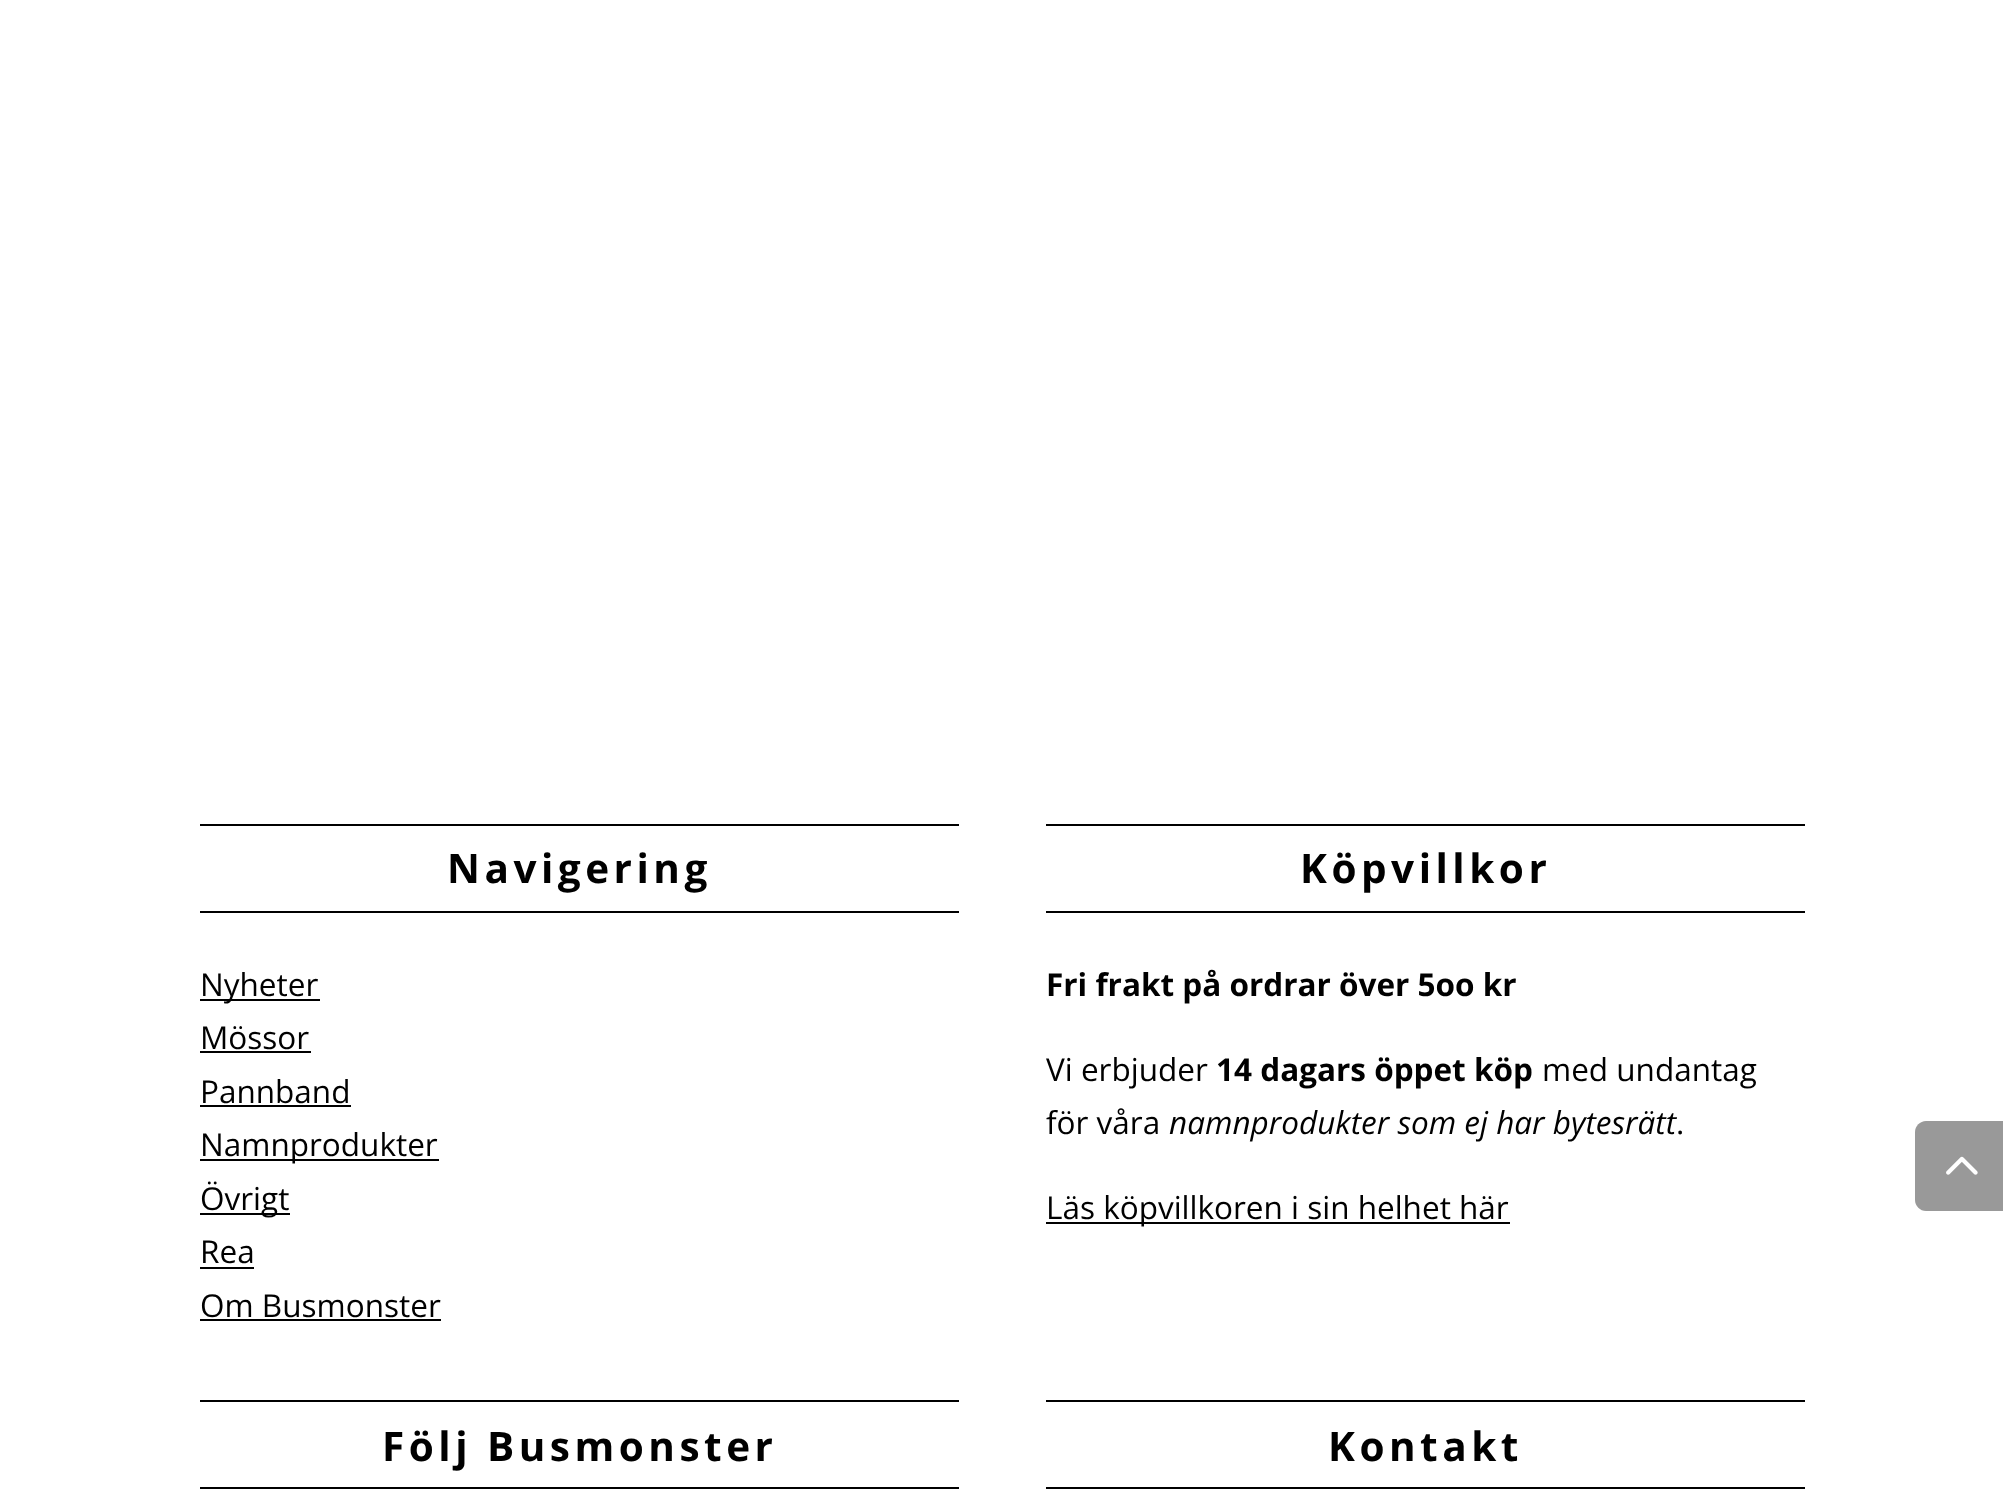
async function draw(canvas) {
  canvas.width = 2003;
  canvas.height = 1490;
  const ctx = canvas.getContext('2d');
  ctx.miterLimit = 4;
  ctx.fontKerning = 'normal';
  function label(s, x, y, font, color) {
    ctx.font = font;
    ctx.fillStyle = color;
    ctx.fillText(s, x, y);
  }
  function rect(x, y, w, h, color) {
    ctx.fillStyle = color;
    ctx.fillRect(x, y, w, h);
  }
  async function image(src, x, y, w, h) {
    const img = new Image();
    img.src = src;
    await img.decode();
    ctx.drawImage(img, x, y, w, h);
  }
  let path;

  rect(0, 0, 2003, 1490, '#fff');
  rect(200, 824, 759, 2, '#000');
  rect(200, 911, 759, 2, '#000');
  ctx.letterSpacing = '4.5px';
  label('Navigering', 447, 883, 'bold 40.5px Open Sans', '#000');
  rect(200, 999, 120, 2, '#000');
  ctx.letterSpacing = '0px';
  label('Nyheter', 200, 996, '31.5px Open Sans', '#000');
  label('Mössor', 200, 1049, '31.5px Open Sans', '#000');
  rect(200, 1051, 111, 2, '#000');
  label('Pannband', 200, 1103, '31.5px Open Sans', '#000');
  rect(200, 1105, 151, 2, '#000');
  rect(200, 1159, 239, 2, '#000');
  label('Namnprodukter', 200, 1156, '31.5px Open Sans', '#000');
  rect(200, 1213, 90, 2, '#000');
  label('Övrigt', 200, 1210, '31.5px Open Sans', '#000');
  label('Rea', 200, 1263, '31.5px Open Sans', '#000');
  rect(200, 1267, 54, 2, '#000');
  label('Om Busmonster', 200, 1317, '31.5px Open Sans', '#000');
  rect(200, 1319, 241, 2, '#000');
  rect(1046, 824, 759, 2, '#000');
  rect(1046, 911, 759, 2, '#000');
  ctx.letterSpacing = '4.5px';
  label('Köpvillkor', 1300, 883, 'bold 40.5px Open Sans', '#000');
  ctx.letterSpacing = '0px';
  label('Fri frakt på ordrar över 5oo kr', 1046, 996, 'bold 31.5px Open Sans', '#000');
  label('Vi erbjuder', 1046, 1081, '31.5px Open Sans', '#000');
  label('14 dagars öppet köp', 1216, 1081, 'bold 31.5px Open Sans', '#000');
  label('med undantag', 1542, 1081, '31.5px Open Sans', '#000');
  label('för våra', 1046, 1134, '31.5px Open Sans', '#000');
  label('namnprodukter som ej har bytesrätt', 1169, 1134, 'italic 31.5px Open Sans', '#000');
  label('.', 1676, 1134, '31.5px Open Sans', '#000');
  rect(1046, 1222, 464, 2, '#000');
  label('Läs köpvillkoren i sin helhet här', 1046, 1219, '31.5px Open Sans', '#000');
  rect(200, 1400, 759, 2, '#000');
  rect(200, 1487, 759, 2, '#000');
  ctx.letterSpacing = '4.5px';
  label('Följ Busmonster', 382, 1461, 'bold 40.5px Open Sans', '#000');
  rect(1046, 1400, 759, 2, '#000');
  rect(1046, 1487, 759, 2, '#000');
  label('Kontakt', 1328, 1461, 'bold 40.5px Open Sans', '#000');
  ctx.fillStyle = '#999';
  path = new Path2D('M1926 1121H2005V1211H1926C1920 1211 1915 1206 1915 1200V1132C1915 1126 1920 1121 1926 1121Z');
  ctx.fill(path);
  await image('assets/img1.png', 1946, 1156, 32, 19);
}

draw(document.querySelector('canvas'));
